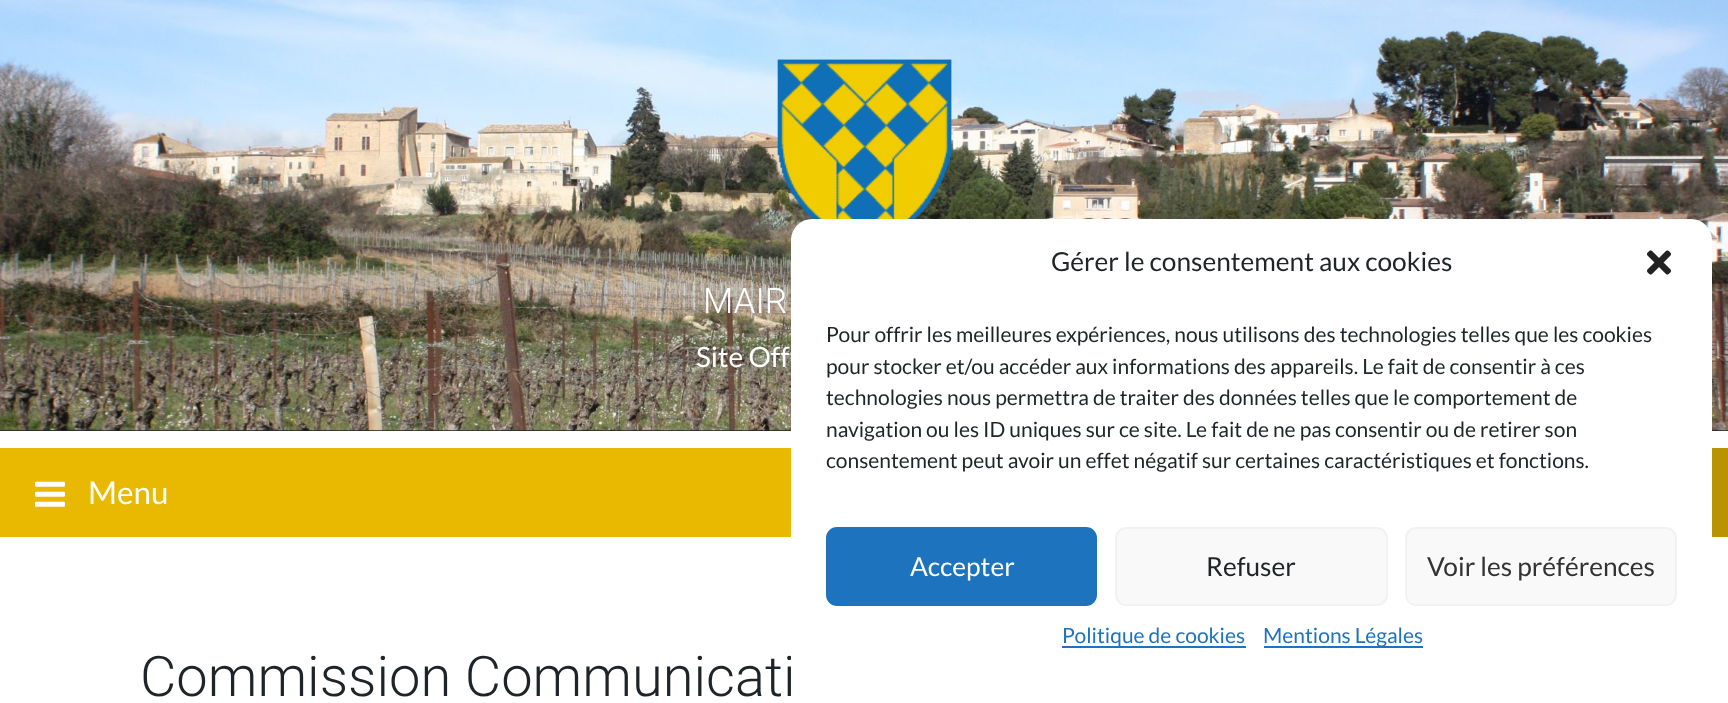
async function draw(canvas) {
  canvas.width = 1728;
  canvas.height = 703;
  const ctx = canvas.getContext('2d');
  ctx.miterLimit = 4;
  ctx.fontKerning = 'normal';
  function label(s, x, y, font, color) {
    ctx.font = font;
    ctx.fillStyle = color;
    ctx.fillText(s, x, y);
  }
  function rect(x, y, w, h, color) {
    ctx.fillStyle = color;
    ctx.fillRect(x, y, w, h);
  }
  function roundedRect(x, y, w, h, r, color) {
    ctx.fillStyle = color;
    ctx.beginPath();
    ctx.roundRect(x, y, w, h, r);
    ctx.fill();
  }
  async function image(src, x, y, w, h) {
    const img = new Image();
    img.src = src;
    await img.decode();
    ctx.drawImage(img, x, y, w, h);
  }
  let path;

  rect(0, 0, 1728, 703, '#fff');
  rect(0, 430, 1728, 1, '#1e2427');
  await image('assets/img1.png', 0, 0, 1728, 431);
  await image('assets/img2.png', 777, 59, 175, 160);
  label('MAIR', 703, 313, '300 35px Roboto', '#fff');
  label('Site Off', 696, 367, '28px Lato', '#fff');
  rect(0, 448, 791, 89, '#e8b900');
  await image('assets/img3.png', 35, 481, 30, 26);
  label('Menu', 88, 504, '31.5px Lato', '#fff');
  ctx.save();
  ctx.beginPath();
  ctx.rect(0, 448, 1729, 89);
  ctx.clip();
  ctx.fillStyle = '#ba9400';
  path = new Path2D('M1660 390L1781 460L1693 613L1572 543Z');
  ctx.fill(path);
  ctx.restore();
  label('Commission Communicati', 140, 696, '300 56px Roboto', '#1e2427');
  roundedRect(791, 219, 921, 467, 21, '#fff');
  label('Gérer le consentement aux cookies', 1051, 271, '26.25px Lato', '#1e2427');
  await image('assets/img4.png', 1647, 250, 24, 25);
  label('Pour offrir les meilleures expériences, nous utilisons des technologies telles que les cookies', 826, 342, '21px Lato', '#1e2427');
  label('pour stocker et/ou accéder aux informations des appareils. Le fait de consentir à ces', 826, 374, '21px Lato', '#1e2427');
  label('technologies nous permettra de traiter des données telles que le comportement de', 826, 405, '21px Lato', '#1e2427');
  label('navigation ou les ID uniques sur ce site. Le fait de ne pas consentir ou de retirer son', 826, 437, '21px Lato', '#1e2427');
  label('consentement peut avoir un effet négatif sur certaines caractéristiques et fonctions.', 826, 468, '21px Lato', '#1e2427');
  ctx.fillStyle = '#1e73be';
  ctx.beginPath();
  ctx.roundRect(827, 528, 269, 77, 10);
  ctx.fill();
  ctx.strokeStyle = '#1e73be';
  ctx.lineWidth = 2;
  ctx.stroke();
  label('Accepter', 910, 576, '26.25px Lato', '#fff');
  ctx.fillStyle = '#f9f9f9';
  ctx.beginPath();
  ctx.roundRect(1116, 528, 271, 77, 10);
  ctx.fill();
  ctx.strokeStyle = '#f2f2f2';
  ctx.stroke();
  label('Refuser', 1206, 576, '26.25px Lato', '#1e2427');
  ctx.fillStyle = '#f9f9f9';
  ctx.beginPath();
  ctx.roundRect(1406, 528, 270, 77, 10);
  ctx.fill();
  ctx.stroke();
  label('Voir les préférences', 1427, 576, '26.25px Lato', '#333');
  rect(1062, 646, 184, 2, '#1e73be');
  label('Politique de cookies', 1062, 643, '21px Lato', '#1e73be');
  rect(1264, 646, 159, 2, '#1e73be');
  label('Mentions Légales', 1263, 643, '21px Lato', '#1e73be');
}

draw(document.querySelector('canvas'));
